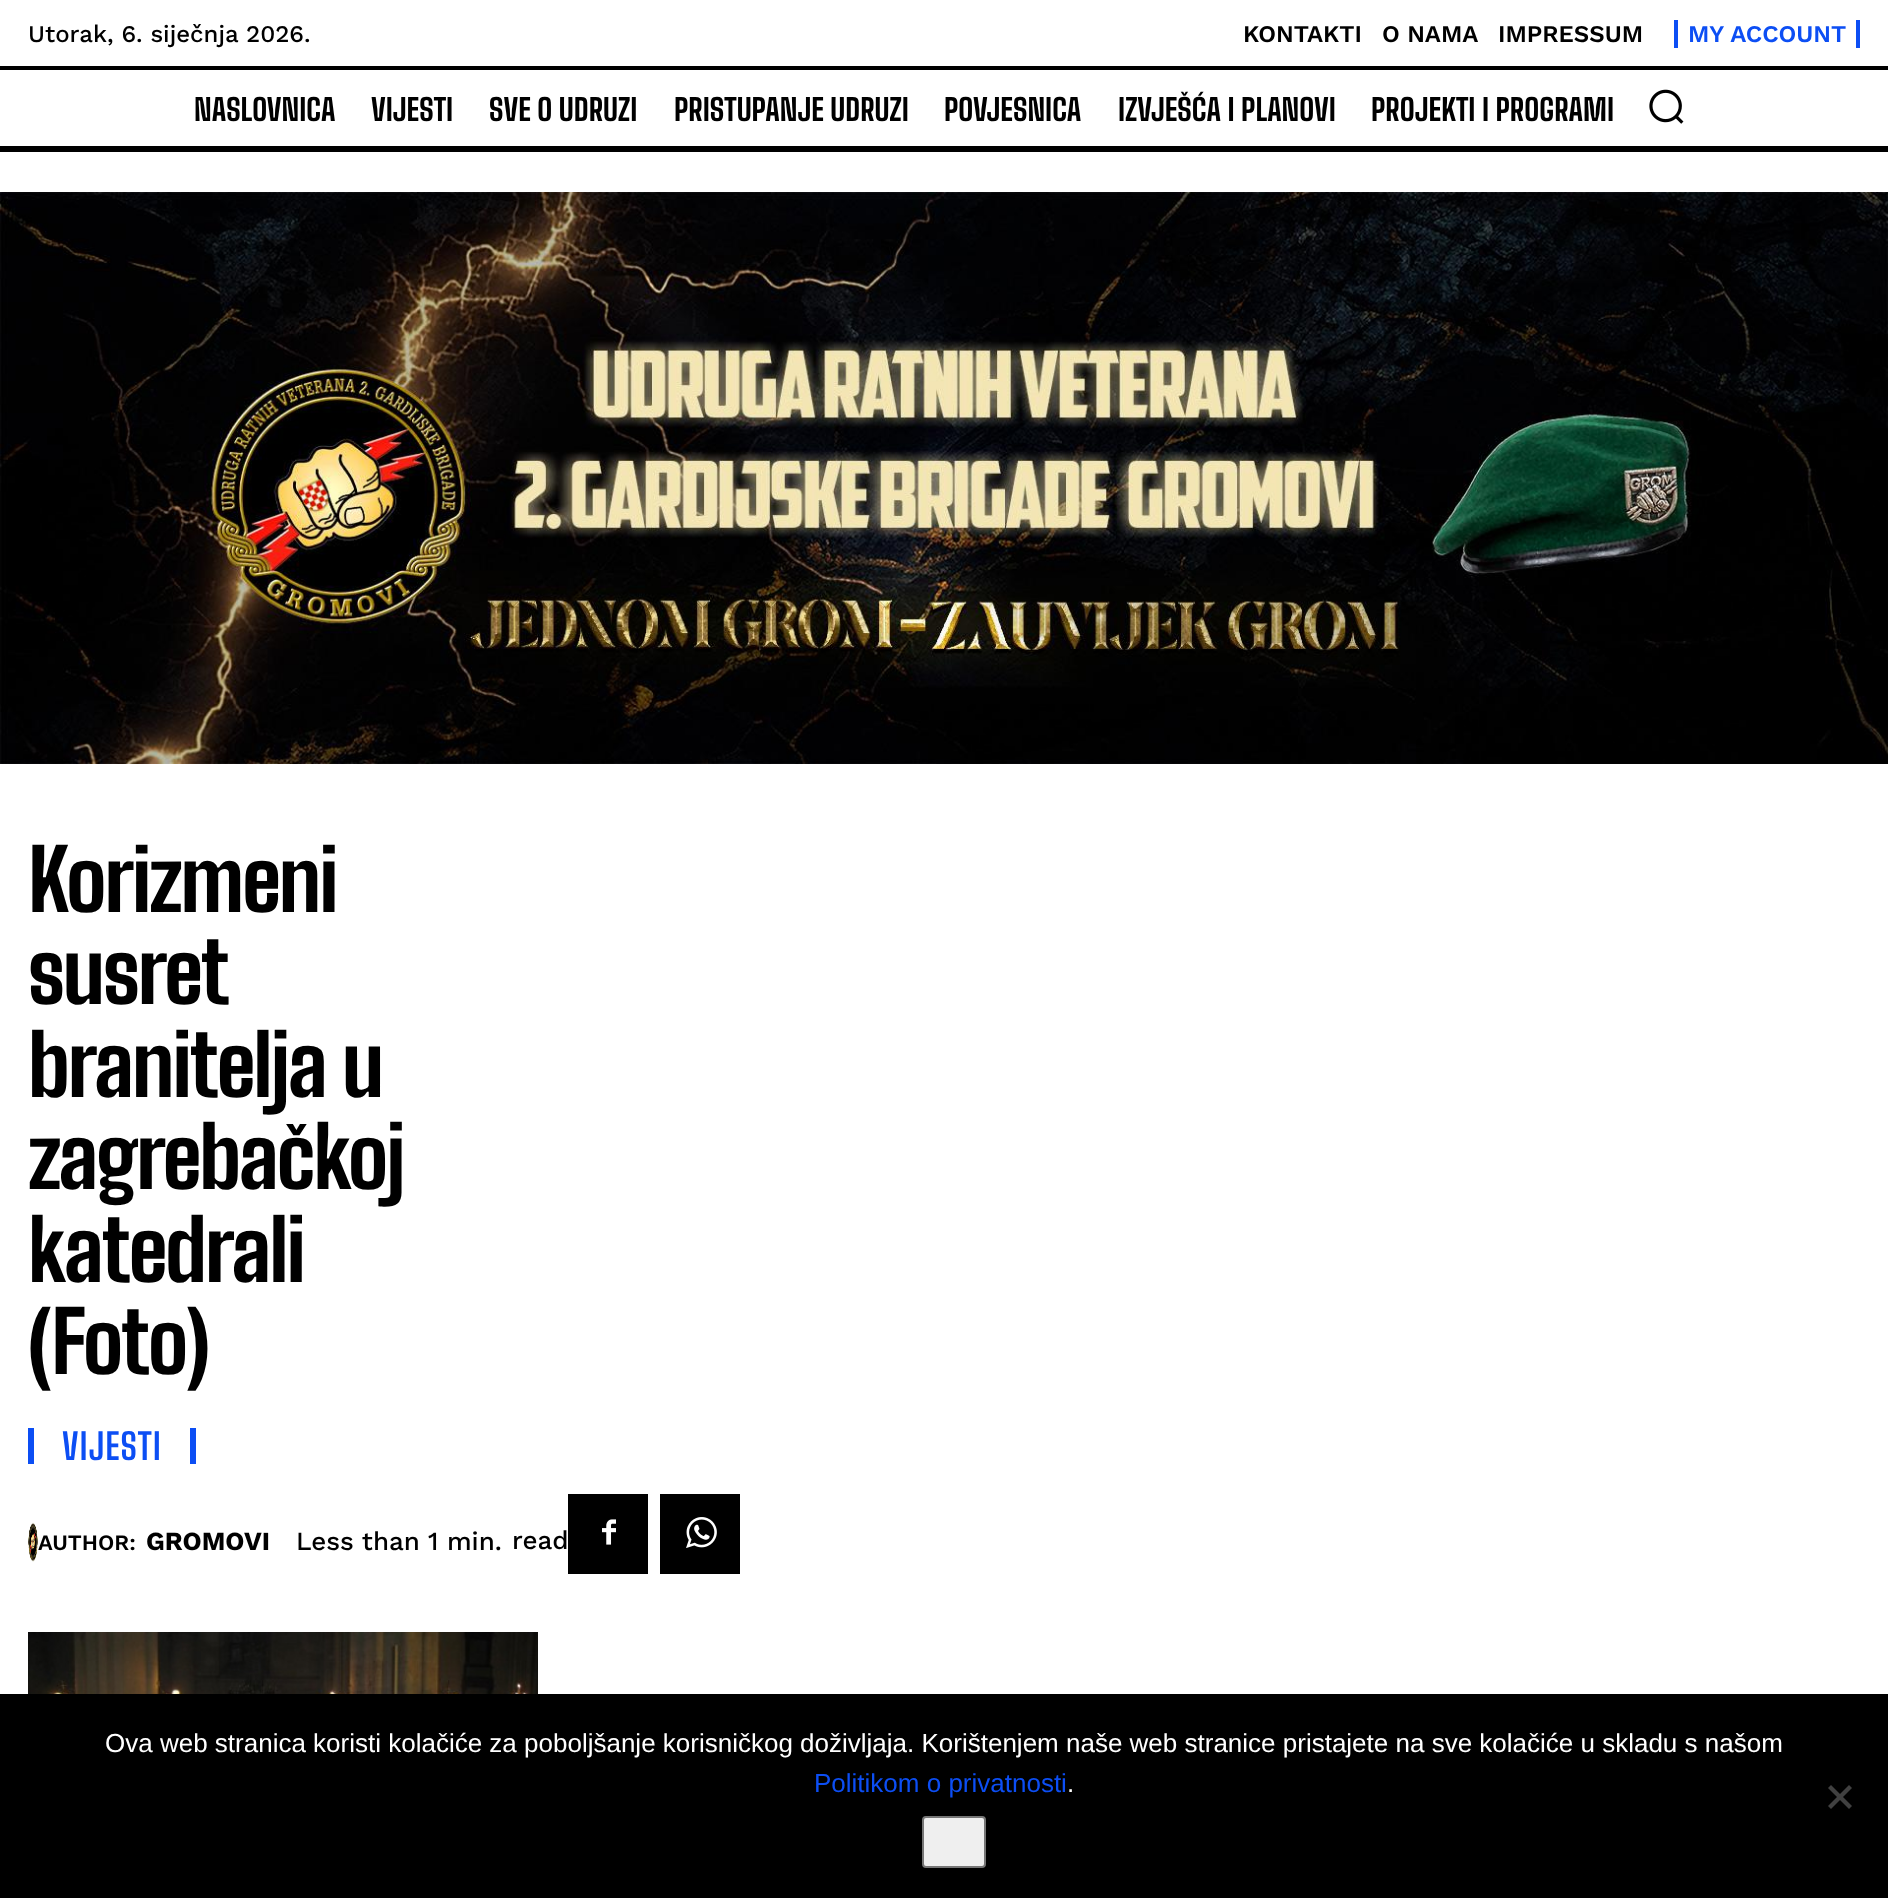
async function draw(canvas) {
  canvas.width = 1888;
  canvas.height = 1898;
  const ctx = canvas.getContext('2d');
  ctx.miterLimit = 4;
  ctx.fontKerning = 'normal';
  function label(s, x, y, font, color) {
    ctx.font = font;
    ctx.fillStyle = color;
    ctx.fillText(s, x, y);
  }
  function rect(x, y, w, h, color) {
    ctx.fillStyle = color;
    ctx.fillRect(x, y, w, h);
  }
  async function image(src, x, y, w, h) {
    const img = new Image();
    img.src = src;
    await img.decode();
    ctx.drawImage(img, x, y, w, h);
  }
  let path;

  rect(0, 0, 1888, 1898, '#fff');
  label('Utorak, 6. siječnja 2026.', 28, 42, '500 24px Work Sans', '#000');
  label('KONTAKTI', 1243, 42, '600 24px Work Sans', '#000');
  label('O NAMA', 1382, 42, '600 24px Work Sans', '#000');
  label('IMPRESSUM', 1498, 42, '600 24px Work Sans', '#000');
  rect(1856, 20, 4, 28, '#0c4ef4');
  rect(1674, 20, 4, 28, '#0c4ef4');
  label('MY ACCOUNT', 1688, 42, '600 24px Work Sans', '#0c4ef4');
  rect(0, 66, 1888, 4, '#000');
  label('NASLOVNICA', 194, 121, '800 30px Big Shoulders Text', '#000');
  label('VIJESTI', 371, 121, '800 30px Big Shoulders Text', '#000');
  label('SVE O UDRUZI', 489, 121, '800 30px Big Shoulders Text', '#000');
  label('PRISTUPANJE UDRUZI', 674, 121, '800 30px Big Shoulders Text', '#000');
  label('POVJESNICA', 944, 121, '800 30px Big Shoulders Text', '#000');
  label('IZVJEŠĆA I PLANOVI', 1118, 121, '800 30px Big Shoulders Text', '#000');
  label('PROJEKTI I PROGRAMI', 1371, 121, '800 30px Big Shoulders Text', '#000');
  await image('assets/img1.png', 1649, 89, 35, 35);
  rect(0, 146, 1888, 6, '#000');
  await image('assets/img2.png', 0, 192, 1888, 572);
  ctx.letterSpacing = '-2px';
  label('Korizmeni', 28, 912, '800 84px Big Shoulders Text', '#000');
  label('susret', 28, 1004, '800 84px Big Shoulders Text', '#000');
  label('branitelja u', 28, 1097, '800 84px Big Shoulders Text', '#000');
  label('zagrebačkoj', 28, 1189, '800 84px Big Shoulders Text', '#000');
  label('katedrali', 28, 1282, '800 84px Big Shoulders Text', '#000');
  label('(Foto)', 28, 1374, '800 84px Big Shoulders Text', '#000');
  rect(190, 1428, 6, 36, '#0c4ef4');
  rect(28, 1428, 6, 36, '#0c4ef4');
  ctx.letterSpacing = '1px';
  label('VIJESTI', 62, 1460, 'bold 36px Big Shoulders Text', '#0c4ef4');
  await image('assets/img3.png', 28, 1522, 10, 40);
  ctx.letterSpacing = '0px';
  label('AUTHOR:', 38, 1550, '600 22px Work Sans', '#000');
  label('GROMOVI', 146, 1550, 'bold 26px Work Sans', '#000');
  label('Less than 1 min.', 296, 1550, '500 26px Work Sans', '#000');
  label('read', 512, 1549, '500 26px Work Sans', '#000');
  rect(568, 1494, 80, 80, '#000');
  await image('assets/img4.png', 602, 1519, 14, 26);
  rect(660, 1494, 80, 80, '#000');
  await image('assets/img5.png', 686, 1517, 31, 31);
  await image('assets/img6.png', 28, 1632, 510, 62);
  rect(0, 1694, 1888, 204, '#000');
  label('Ova web stranica koristi kolačiće za poboljšanje korisničkog doživljaja. Korištenjem naše web stranice pristajete na sve kolačiće u skladu s našom', 105, 1752, '26px Liberation Sans', '#fff');
  label('Politikom o privatnosti', 814, 1792, '26px Liberation Sans', '#0c4ef4');
  label('.', 1067, 1792, '26px Liberation Sans', '#fff');
  ctx.fillStyle = '#404040';
  path = new Path2D('M1849 1785L1852 1788L1831 1809L1828 1806Z');
  ctx.fill(path);
  path = new Path2D('M1828 1788L1831 1785L1852 1806L1849 1809Z');
  ctx.fill(path);
  ctx.fillStyle = '#efefef';
  ctx.beginPath();
  ctx.roundRect(923, 1817, 62, 50, 3);
  ctx.fill();
  ctx.strokeStyle = '#767676';
  ctx.lineWidth = 2;
  ctx.stroke();
}

draw(document.querySelector('canvas'));
